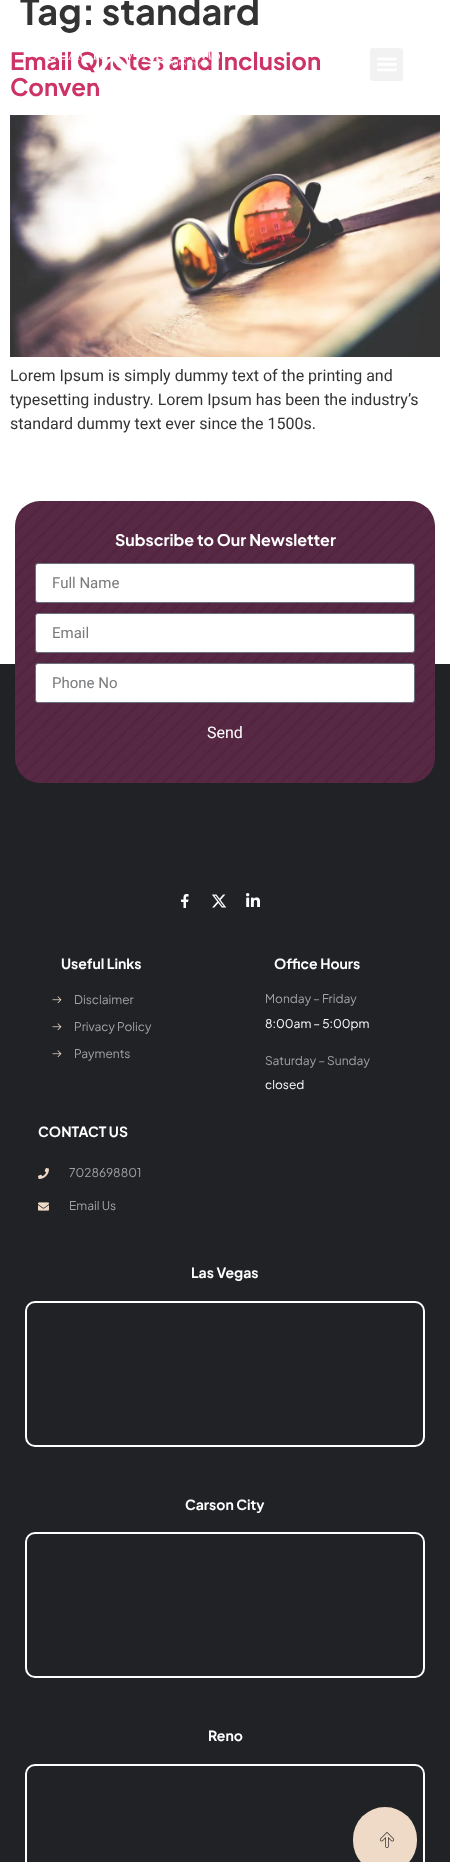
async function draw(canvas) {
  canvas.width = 450;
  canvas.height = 1862;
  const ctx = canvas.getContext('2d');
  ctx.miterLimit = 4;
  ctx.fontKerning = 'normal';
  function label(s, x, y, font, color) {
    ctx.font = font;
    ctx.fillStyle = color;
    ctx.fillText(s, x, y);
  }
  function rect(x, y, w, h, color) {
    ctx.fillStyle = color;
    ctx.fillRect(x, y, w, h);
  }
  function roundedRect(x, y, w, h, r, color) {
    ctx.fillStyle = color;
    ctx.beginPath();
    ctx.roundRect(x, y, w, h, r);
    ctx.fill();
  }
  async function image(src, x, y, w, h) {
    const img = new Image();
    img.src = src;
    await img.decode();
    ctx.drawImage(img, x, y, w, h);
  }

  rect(0, 0, 450, 1862, '#fff');
  label('Tag: standard', 20, 25, 'bold 36px Plus Jakarta Sans', '#333');
  label('Email Quotes and Inclusion', 10, 70, 'bold 24px Plus Jakarta Sans', '#c36');
  label('Conven', 10, 96, 'bold 24px Plus Jakarta Sans', '#c36');
  await image('assets/img1.png', 10, 115, 430, 242);
  label('Lorem Ipsum is simply dummy text of the printing and', 10, 381, '16px Roboto', '#333');
  label('typesetting industry. Lorem Ipsum has been the industry’s', 10, 405, '16px Roboto', '#333');
  label('standard dummy text ever since the 1500s.', 10, 429, '16px Roboto', '#333');
  await image('assets/img2.png', 48, 51, 172, 46);
  roundedRect(370, 48, 33, 33, 3, '#f2f2f2');
  await image('assets/img3.png', 377, 57, 20, 15);
  rect(0, 664, 450, 1198, '#202226');
  roundedRect(15, 501, 420, 282, 25, '#51213d');
  await image('assets/img4.png', 15, 501, 420, 282);
  label('Subscribe to Our Newsletter', 115, 546, 'bold 16px Plus Jakarta Sans', '#fff');
  ctx.beginPath();
  ctx.roundRect(35.5, 563.5, 379, 39, 2.5);
  ctx.fill();
  ctx.strokeStyle = '#69727d';
  ctx.stroke();
  label('Full Name', 52, 588, '15px Roboto', '#797a7c');
  ctx.fillStyle = '#fff';
  ctx.beginPath();
  ctx.roundRect(35.5, 613.5, 379, 39, 2.5);
  ctx.fill();
  ctx.stroke();
  label('Email', 52, 638, '15px Roboto', '#797a7c');
  ctx.fillStyle = '#fff';
  ctx.beginPath();
  ctx.roundRect(35.5, 663.5, 379, 39, 2.5);
  ctx.fill();
  ctx.stroke();
  label('Phone No', 52, 688, '15px Roboto', '#797a7c');
  label('Send', 207, 738, '16px Roboto', '#fff');
  await image('assets/img5.png', 181, 894, 8, 14);
  await image('assets/img6.png', 212, 894, 15, 14);
  await image('assets/img7.png', 246, 893, 14, 14);
  label('Useful Links', 61, 969, 'bold 14px Plus Jakarta Sans', '#fff');
  await image('assets/img8.png', 52, 996, 10, 8);
  label('Disclaimer', 74, 1004, '12px Plus Jakarta Sans', '#a3a3a3');
  await image('assets/img8.png', 52, 1023, 10, 8);
  label('Privacy Policy', 74, 1031, '12px Plus Jakarta Sans', '#a3a3a3');
  await image('assets/img8.png', 52, 1050, 10, 8);
  label('Payments', 74, 1058, '12px Plus Jakarta Sans', '#a3a3a3');
  label('Office Hours', 274, 969, 'bold 14px Plus Jakarta Sans', '#fff');
  label('Monday – Friday', 265, 1003, '12px Plus Jakarta Sans', '#a3a3a3');
  label('8:00am – 5:00pm', 265, 1028, '12px Plus Jakarta Sans', '#fff');
  label('Saturday – Sunday', 265, 1065, '12px Plus Jakarta Sans', '#a3a3a3');
  label('closed', 265, 1089, '12px Plus Jakarta Sans', '#fff');
  label('CONTACT US', 38, 1137, 'bold 14px Plus Jakarta Sans', '#fff');
  await image('assets/img9.png', 38, 1168, 11, 11);
  label('7028698801', 69, 1177, '12px Plus Jakarta Sans', '#a3a3a3');
  await image('assets/img10.png', 38, 1202, 11, 9);
  label('Email Us', 69, 1210, '12px Plus Jakarta Sans', '#a3a3a3');
  label('Las Vegas', 191, 1278, 'bold 14px Plus Jakarta Sans', '#fff');
  ctx.beginPath();
  ctx.roundRect(26, 1302, 398, 144, 9);
  ctx.strokeStyle = '#fff';
  ctx.lineWidth = 2;
  ctx.stroke();
  label('Carson City', 185, 1510, 'bold 14px Plus Jakarta Sans', '#fff');
  ctx.beginPath();
  ctx.roundRect(26, 1533, 398, 144, 9);
  ctx.stroke();
  label('Reno', 208, 1741, 'bold 14px Plus Jakarta Sans', '#fff');
  ctx.beginPath();
  ctx.roundRect(26, 1765, 398, 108, 9);
  ctx.stroke();
  roundedRect(353, 1807, 64, 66, 32, '#efdac7');
  await image('assets/img11.png', 379, 1832, 16, 16);
}

draw(document.querySelector('canvas'));
